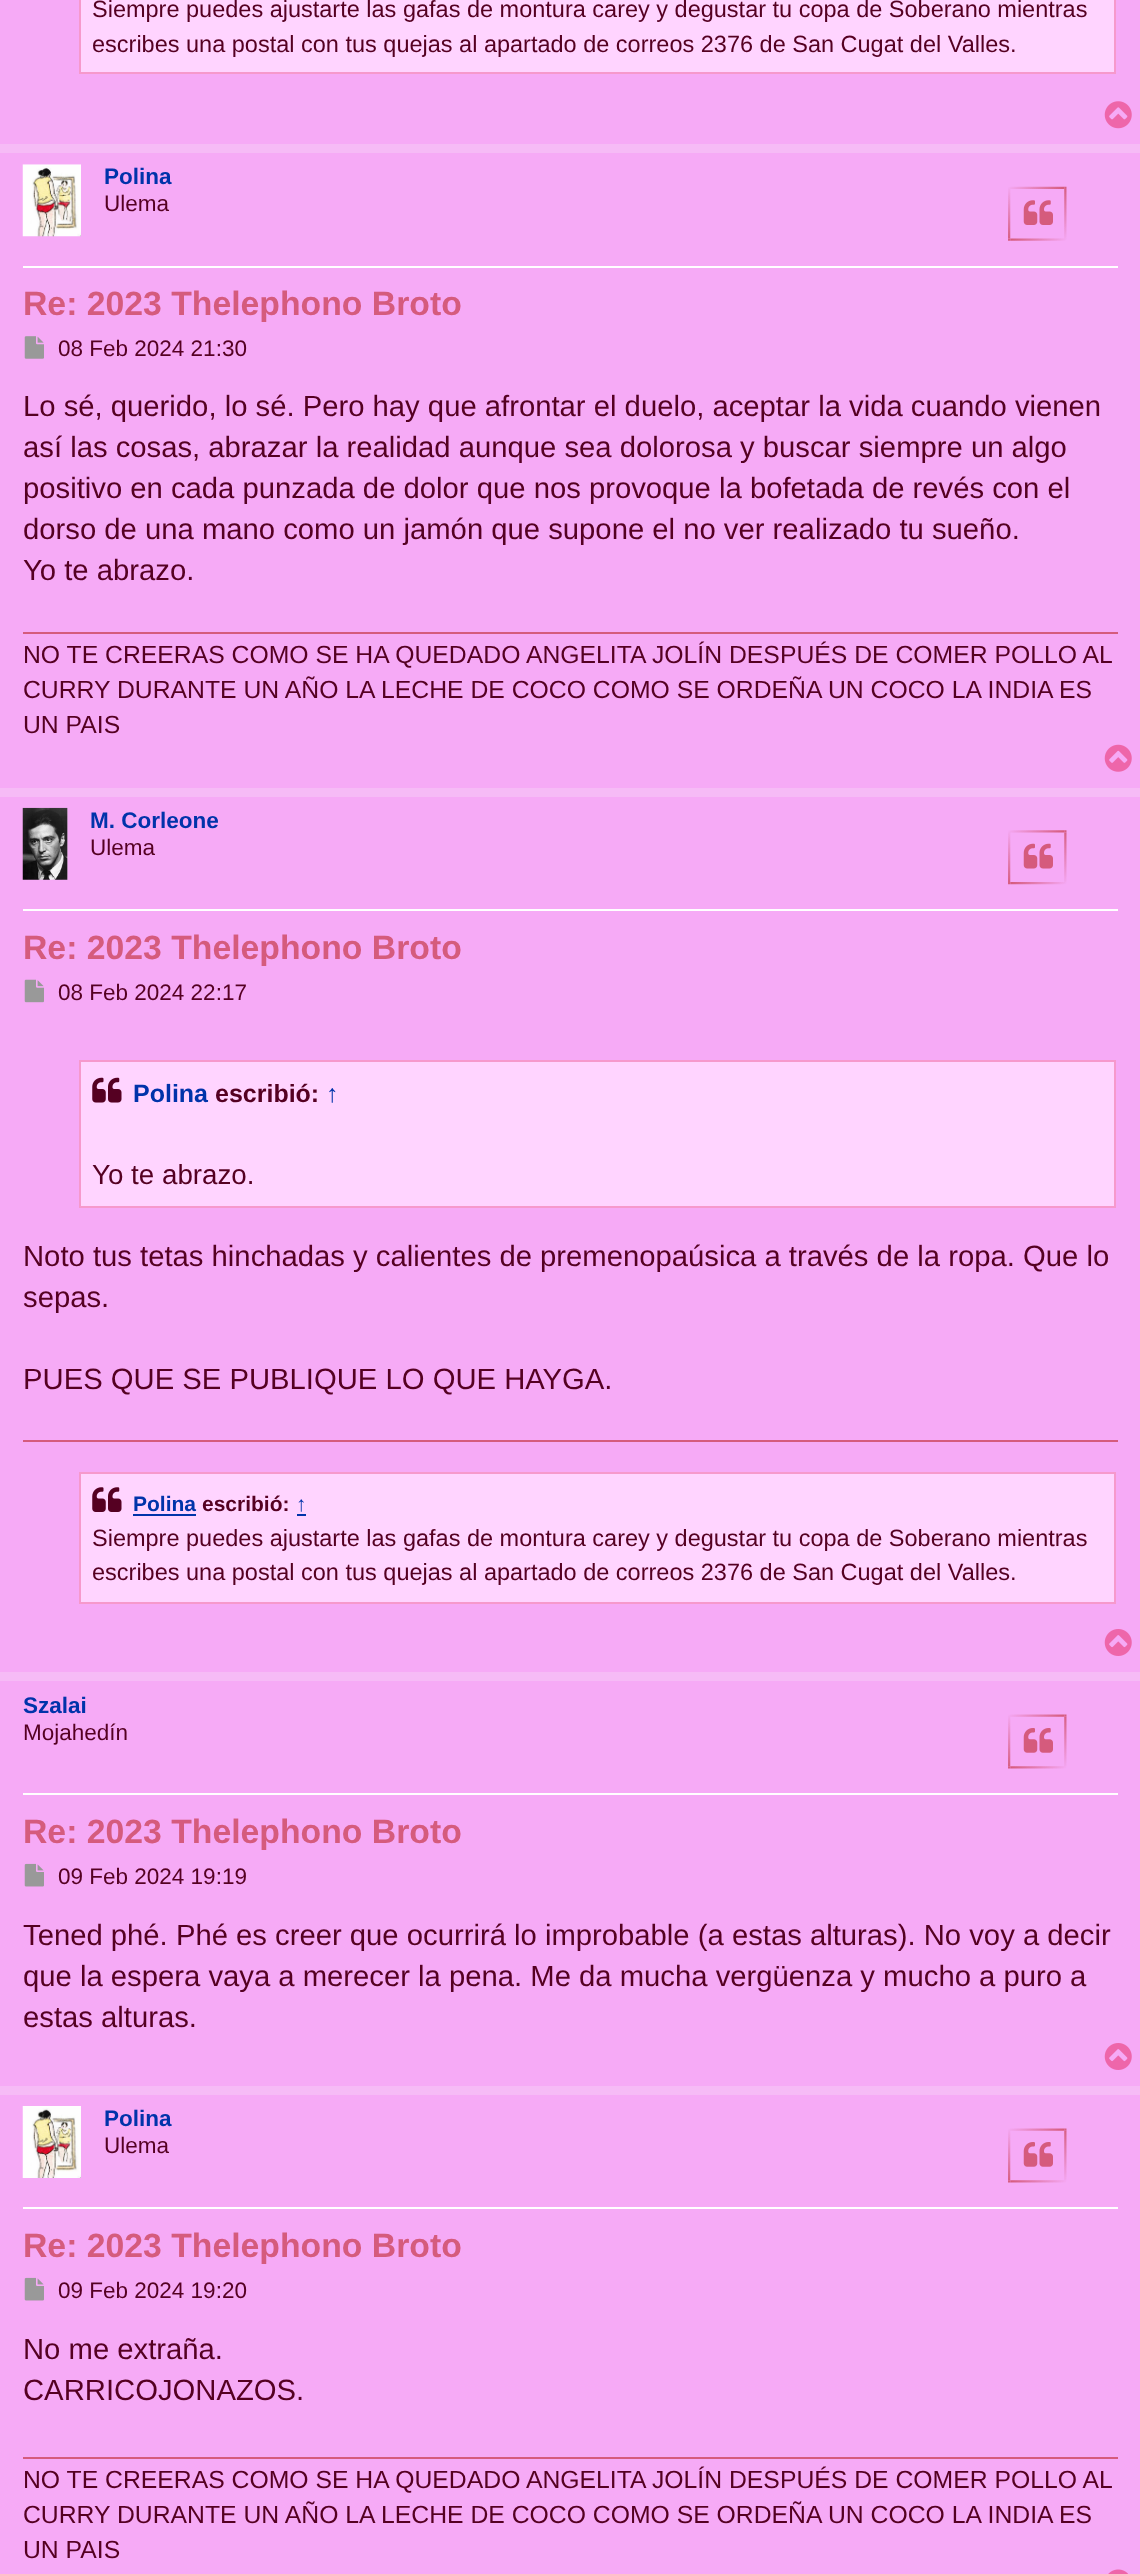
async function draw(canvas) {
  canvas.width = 1140;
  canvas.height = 2574;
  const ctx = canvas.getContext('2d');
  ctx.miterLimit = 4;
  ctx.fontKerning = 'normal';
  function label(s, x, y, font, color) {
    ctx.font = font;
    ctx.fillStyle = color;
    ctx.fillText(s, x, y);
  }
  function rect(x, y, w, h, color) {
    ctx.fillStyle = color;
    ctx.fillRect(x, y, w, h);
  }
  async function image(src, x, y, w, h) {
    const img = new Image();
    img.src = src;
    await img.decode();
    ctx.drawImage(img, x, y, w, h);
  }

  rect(0, 0, 1140, 2574, '#f6bbf6');
  rect(0, 0, 1140, 144, '#f6aaf6');
  ctx.fillStyle = '#ffd4ff';
  ctx.beginPath();
  ctx.rect(80, -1, 1035, 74);
  ctx.fill();
  ctx.strokeStyle = '#f699cc';
  ctx.lineWidth = 2;
  ctx.stroke();
  label('Siempre puedes ajustarte las gafas de montura carey y degustar tu copa de Soberano mientras', 92, 17, '23.5px Liberation Sans', '#502');
  label('escribes una postal con tus quejas al apartado de correos 2376 de San Cugat del Valles.', 92, 52, '23.5px Liberation Sans', '#502');
  await image('assets/img1.png', 1104, 101, 28, 28);
  rect(0, 153, 1140, 635, '#f6aaf6');
  rect(23, 266, 1095, 2, '#fff');
  await image('assets/img2.png', 22, 164, 59, 73);
  label('Polina', 104, 184, 'bold 22.5px Liberation Sans', '#03a');
  label('Ulema', 104, 211, '22.5px Liberation Sans', '#502');
  await image('assets/img3.png', 1008, 186, 59, 55);
  await image('assets/img4.png', 1023, 200, 30, 25);
  label('Re: 2023 Thelephono Broto', 23, 315, 'bold 33.75px Liberation Sans', '#d55b7d');
  await image('assets/img5.png', 24, 336, 20, 23);
  label('08 Feb 2024 21:30', 58, 356, '22.5px Liberation Sans', '#502');
  label('Lo sé, querido, lo sé. Pero hay que afrontar el duelo, aceptar la vida cuando vienen', 23, 416, '29.25px Liberation Sans', '#502');
  label('así las cosas, abrazar la realidad aunque sea dolorosa y buscar siempre un algo', 23, 457, '29.25px Liberation Sans', '#502');
  label('positivo en cada punzada de dolor que nos provoque la bofetada de revés con el', 23, 498, '29.25px Liberation Sans', '#502');
  label('dorso de una mano como un jamón que supone el no ver realizado tu sueño.', 23, 539, '29.25px Liberation Sans', '#502');
  label('Yo te abrazo.', 23, 580, '29.25px Liberation Sans', '#502');
  rect(23, 632, 1095, 2, '#d55b7d');
  label('NO TE CREERAS COMO SE HA QUEDADO ANGELITA JOLÍN DESPUÉS DE COMER POLLO AL', 23, 663, '24.75px Liberation Sans', '#502');
  label('CURRY DURANTE UN AÑO LA LECHE DE COCO COMO SE ORDEÑA UN COCO LA INDIA ES', 23, 698, '24.75px Liberation Sans', '#502');
  label('UN PAIS', 23, 733, '24.75px Liberation Sans', '#502');
  await image('assets/img6.png', 1104, 744, 28, 28);
  rect(0, 797, 1140, 875, '#f6aaf6');
  rect(23, 909, 1095, 2, '#fff');
  await image('assets/img7.png', 22, 807, 46, 73);
  label('M. Corleone', 90, 828, 'bold 22.5px Liberation Sans', '#03a');
  label('Ulema', 90, 855, '22.5px Liberation Sans', '#502');
  await image('assets/img8.png', 1008, 830, 59, 55);
  await image('assets/img9.png', 1023, 843, 30, 26);
  label('Re: 2023 Thelephono Broto', 23, 959, 'bold 33.75px Liberation Sans', '#d55b7d');
  await image('assets/img10.png', 24, 979, 20, 24);
  label('08 Feb 2024 22:17', 58, 1000, '22.5px Liberation Sans', '#502');
  ctx.fillStyle = '#ffd4ff';
  ctx.beginPath();
  ctx.rect(80, 1061, 1035, 146);
  ctx.fill();
  ctx.stroke();
  await image('assets/img11.png', 92, 1077, 30, 26);
  label('Polina', 133, 1102, 'bold 25px Liberation Sans', '#03a');
  label('escribió:', 215, 1102, 'bold 25px Liberation Sans', '#502');
  label('↑', 326, 1102, 'bold 25px Liberation Sans', '#03a');
  label('Yo te abrazo.', 92, 1184, '27.75px Liberation Sans', '#502');
  label('Noto tus tetas hinchadas y calientes de premenopaúsica a través de la ropa. Que lo', 23, 1266, '29.25px Liberation Sans', '#502');
  label('sepas.', 23, 1307, '29.25px Liberation Sans', '#502');
  label('PUES QUE SE PUBLIQUE LO QUE HAYGA.', 23, 1389, '29.25px Liberation Sans', '#502');
  rect(23, 1440, 1095, 2, '#d55b7d');
  ctx.fillStyle = '#ffd4ff';
  ctx.beginPath();
  ctx.rect(80, 1473, 1035, 130);
  ctx.fill();
  ctx.stroke();
  await image('assets/img12.png', 92, 1487, 30, 25);
  label('Polina', 133, 1511, 'bold 21px Liberation Sans', '#03a');
  rect(133, 1514, 63, 2, '#03a');
  label('escribió:', 202, 1511, 'bold 21px Liberation Sans', '#502');
  label('↑', 296, 1511, 'bold 21px Liberation Sans', '#03a');
  rect(297, 1514, 9, 2, '#03a');
  label('Siempre puedes ajustarte las gafas de montura carey y degustar tu copa de Soberano mientras', 92, 1546, '23.5px Liberation Sans', '#502');
  label('escribes una postal con tus quejas al apartado de correos 2376 de San Cugat del Valles.', 92, 1580, '23.5px Liberation Sans', '#502');
  await image('assets/img13.png', 1104, 1629, 28, 27);
  rect(0, 1681, 1140, 405, '#f6aaf6');
  rect(23, 1793, 1095, 2, '#fff');
  label('Szalai', 23, 1713, 'bold 22.5px Liberation Sans', '#03a');
  label('Mojahedín', 23, 1740, '22.5px Liberation Sans', '#502');
  await image('assets/img14.png', 1008, 1714, 59, 55);
  await image('assets/img15.png', 1023, 1728, 30, 25);
  label('Re: 2023 Thelephono Broto', 23, 1843, 'bold 33.75px Liberation Sans', '#d55b7d');
  await image('assets/img16.png', 24, 1863, 20, 24);
  label('09 Feb 2024 19:19', 58, 1884, '22.5px Liberation Sans', '#502');
  label('Tened phé. Phé es creer que ocurrirá lo improbable (a estas alturas). No voy a decir', 23, 1945, '29.25px Liberation Sans', '#502');
  label('que la espera vaya a merecer la pena. Me da mucha vergüenza y mucho a puro a', 23, 1986, '29.25px Liberation Sans', '#502');
  label('estas alturas.', 23, 2027, '29.25px Liberation Sans', '#502');
  await image('assets/img13.png', 1104, 2043, 28, 27);
  rect(0, 2095, 1140, 479, '#f6aaf6');
  rect(23, 2207, 1095, 2, '#fff');
  await image('assets/img17.png', 22, 2106, 59, 72);
  label('Polina', 104, 2126, 'bold 22.5px Liberation Sans', '#03a');
  label('Ulema', 104, 2153, '22.5px Liberation Sans', '#502');
  await image('assets/img18.png', 1008, 2128, 59, 55);
  await image('assets/img15.png', 1023, 2142, 30, 25);
  label('Re: 2023 Thelephono Broto', 23, 2257, 'bold 33.75px Liberation Sans', '#d55b7d');
  await image('assets/img16.png', 24, 2277, 20, 24);
  label('09 Feb 2024 19:20', 58, 2298, '22.5px Liberation Sans', '#502');
  label('No me extraña.', 23, 2359, '29.25px Liberation Sans', '#502');
  label('CARRICOJONAZOS.', 23, 2400, '29.25px Liberation Sans', '#502');
  rect(23, 2457, 1095, 2, '#d55b7d');
  label('NO TE CREERAS COMO SE HA QUEDADO ANGELITA JOLÍN DESPUÉS DE COMER POLLO AL', 23, 2488, '24.75px Liberation Sans', '#502');
  label('CURRY DURANTE UN AÑO LA LECHE DE COCO COMO SE ORDEÑA UN COCO LA INDIA ES', 23, 2523, '24.75px Liberation Sans', '#502');
  label('UN PAIS', 23, 2558, '24.75px Liberation Sans', '#502');
  await image('assets/img19.png', 1108, 2569, 20, 5);
}

draw(document.querySelector('canvas'));
